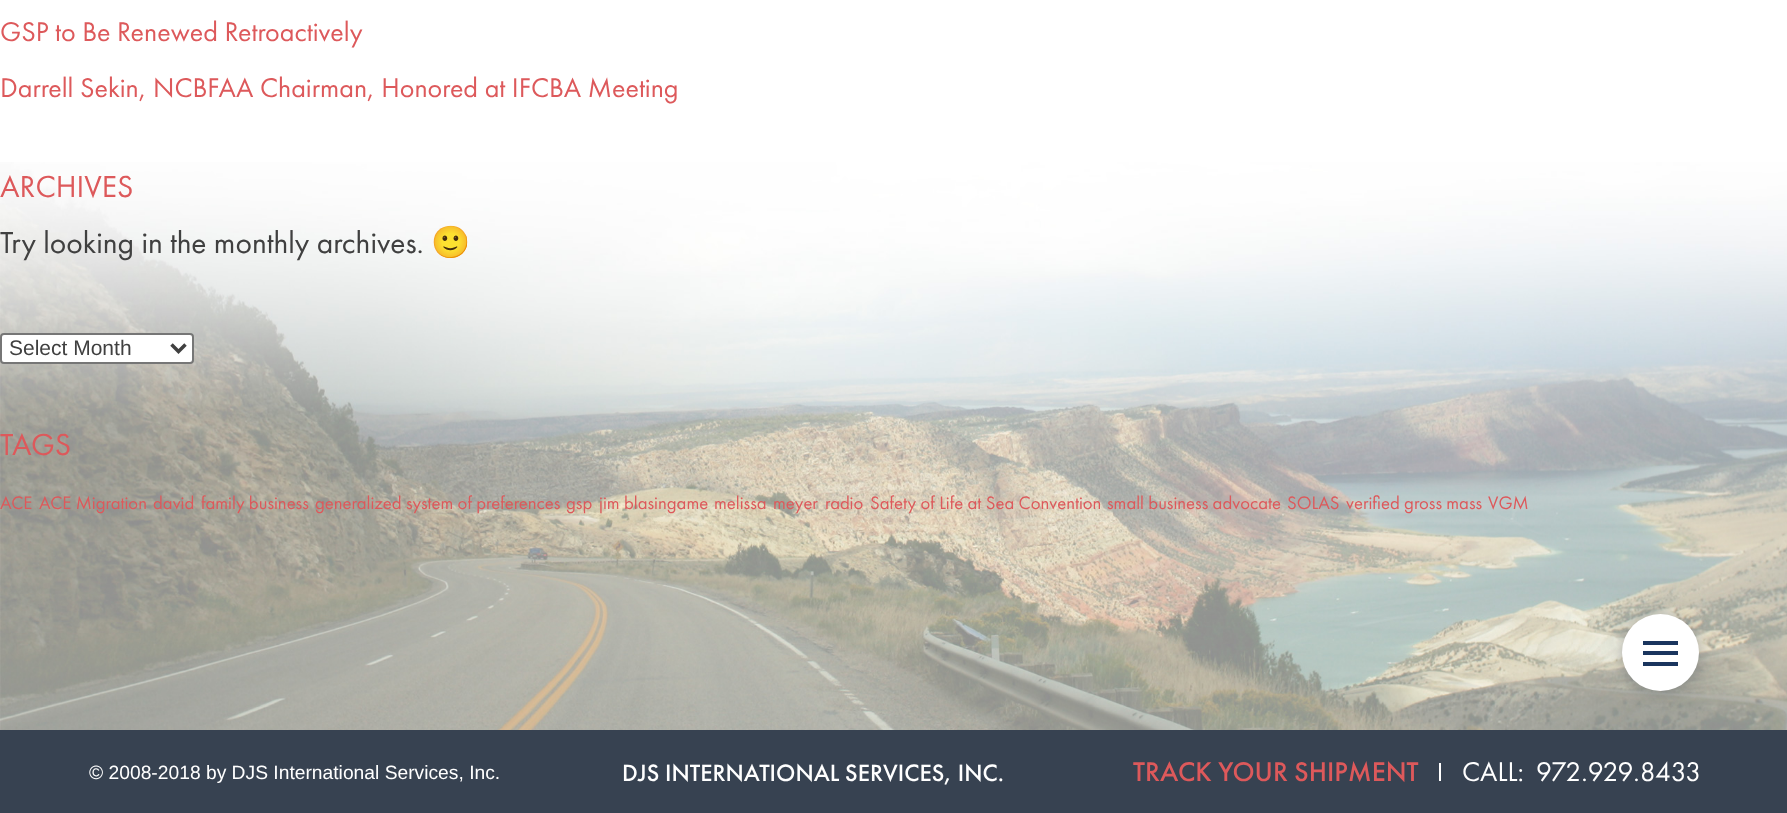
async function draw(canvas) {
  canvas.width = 1787;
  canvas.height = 813;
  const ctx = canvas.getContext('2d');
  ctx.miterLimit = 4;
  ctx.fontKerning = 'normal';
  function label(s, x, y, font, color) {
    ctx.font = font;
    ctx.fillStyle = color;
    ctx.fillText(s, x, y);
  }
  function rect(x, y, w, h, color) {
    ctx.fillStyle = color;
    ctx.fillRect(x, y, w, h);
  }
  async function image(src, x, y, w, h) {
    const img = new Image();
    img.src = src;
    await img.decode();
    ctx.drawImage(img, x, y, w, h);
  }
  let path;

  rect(0, 0, 1787, 813, '#fff');
  await image('assets/img1.png', 0, 162, 1787, 568);
  label('GSP to Be Renewed Retroactively', 0, 41, '28px Futura PT', '#dd595b');
  label('Darrell Sekin, NCBFAA Chairman, Honored at IFCBA Meeting', 0, 97, '28px Futura PT', '#dd595b');
  label('ARCHIVES', 0, 197, '31.5px Futura PT', '#dd595b');
  label('Try looking in the monthly archives.', 0, 253, '31.5px Futura PT', '#404040');
  label('🙂', 431, 253, '31.5px Noto Color Emoji', '#404040');
  ctx.fillStyle = '#fff';
  ctx.beginPath();
  ctx.roundRect(1, 334, 192, 29, 3);
  ctx.fill();
  ctx.strokeStyle = '#767676';
  ctx.lineWidth = 2;
  ctx.stroke();
  path = new Path2D('M171.5 344.5L178.5 351.5L185.5 344.5');
  ctx.strokeStyle = '#404040';
  ctx.lineWidth = 3.5;
  ctx.stroke(path);
  label('Select Month', 9, 355, '21px Liberation Sans', '#404040');
  label('TAGS', 0, 455, '31.5px Futura PT', '#dd595b');
  label('ACE', 0, 509, '18.7px Futura PT', '#dd595b');
  label('ACE Migration', 39, 509, '18.7px Futura PT', '#dd595b');
  label('david', 153, 509, '18.7px Futura PT', '#dd595b');
  label('family business', 201, 509, '18.7px Futura PT', '#dd595b');
  label('generalized system of preferences', 315, 509, '18.7px Futura PT', '#dd595b');
  label('gsp', 566, 509, '18.7px Futura PT', '#dd595b');
  label('jim blasingame', 599, 509, '18.7px Futura PT', '#dd595b');
  label('melissa', 714, 509, '18.7px Futura PT', '#dd595b');
  label('meyer', 773, 509, '18.7px Futura PT', '#dd595b');
  label('radio', 825, 509, '18.7px Futura PT', '#dd595b');
  label('Safety of Life at Sea Convention', 870, 509, '18.7px Futura PT', '#dd595b');
  label('small business advocate', 1107, 509, '18.7px Futura PT', '#dd595b');
  label('SOLAS', 1287, 509, '18.7px Futura PT', '#dd595b');
  label('verified gross mass', 1346, 509, '18.7px Futura PT', '#dd595b');
  label('VGM', 1488, 509, '18.7px Futura PT', '#dd595b');
  ctx.fillStyle = '#37425166';
  ctx.filter = 'blur(9px)';
  ctx.beginPath();
  ctx.roundRect(1622, 614, 77, 77, 38.5);
  ctx.fill();
  ctx.filter = 'none';
  ctx.fillStyle = '#fff';
  ctx.beginPath();
  ctx.arc(1660.5, 652.5, 38.5, 0, 2 * Math.PI);
  ctx.fill();
  rect(1643, 651, 35, 4, '#1a355e');
  rect(1643, 641, 35, 4, '#1a355e');
  rect(1643, 662, 35, 4, '#1a355e');
  rect(0, 730, 1787, 83, '#374251');
  label('© 2008-2018 by DJS International Services, Inc.', 89, 779, '19.25px Liberation Sans', '#fff');
  label('DJS INTERNATIONAL SERVICES, INC.', 622, 781, '500 24.5px Futura PT', '#fff');
  label('TRACK YOUR SHIPMENT', 1133, 781, '500 28px Futura PT', '#dd595b');
  rect(1439, 763, 2, 18, '#fff');
  label('CALL:', 1462, 781, '28px Futura PT', '#fff');
  label('972.929.8433', 1536, 781, '28px Futura PT', '#fff');
}

draw(document.querySelector('canvas'));
